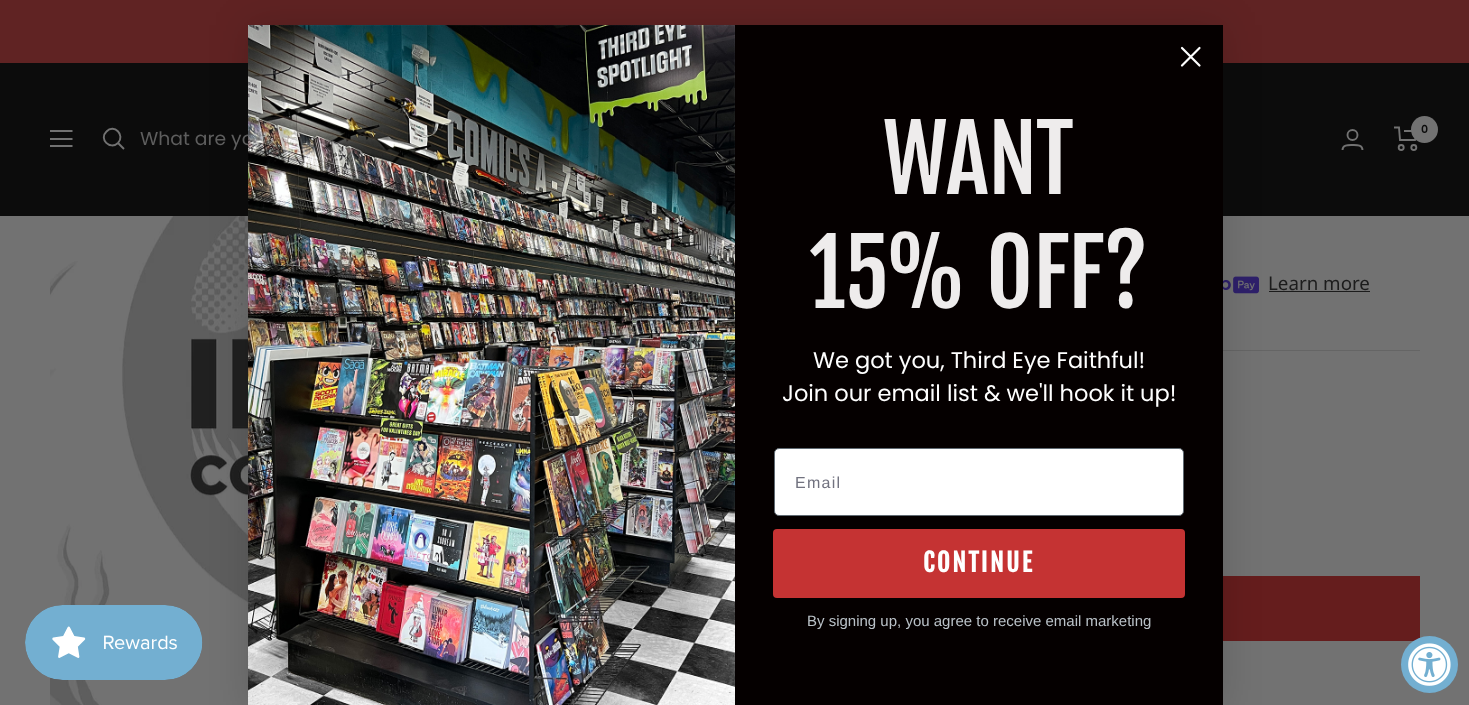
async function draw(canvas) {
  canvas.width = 1469;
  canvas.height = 705;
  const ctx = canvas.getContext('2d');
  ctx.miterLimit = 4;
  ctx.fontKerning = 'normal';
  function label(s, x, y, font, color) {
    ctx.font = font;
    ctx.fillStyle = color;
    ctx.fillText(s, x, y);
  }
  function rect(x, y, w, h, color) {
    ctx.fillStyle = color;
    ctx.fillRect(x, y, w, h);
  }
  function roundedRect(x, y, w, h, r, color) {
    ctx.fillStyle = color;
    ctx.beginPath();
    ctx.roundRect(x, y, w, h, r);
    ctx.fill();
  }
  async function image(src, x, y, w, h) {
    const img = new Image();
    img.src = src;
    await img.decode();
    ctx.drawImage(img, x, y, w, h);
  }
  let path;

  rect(0, 0, 1469, 705, '#727272');
  rect(0, 0, 1469, 63, '#602323');
  rect(0, 63, 1469, 153, '#0c0c0c');
  await image('assets/img2.png', 50, 216, 198, 489);
  rect(1223, 350, 197, 1, '#656565');
  await image('assets/img3.png', 1223, 276, 36, 18);
  rect(1269, 291, 101, 1, '#1c1c1c');
  rect(1223, 576, 197, 65, '#651d1d');
  ctx.fillStyle = '#00000026';
  ctx.filter = 'blur(19px)';
  ctx.beginPath();
  ctx.rect(248, 25, 975, 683);
  ctx.fill();
  ctx.filter = 'none';
  rect(735, 25, 488, 680, '#050000');
  path = new Path2D('M1182 48L1199.5 65.5M1182 65.5L1199.5 48Z');
  ctx.strokeStyle = '#fff';
  ctx.lineWidth = 2.2;
  ctx.lineCap = 'round';
  ctx.lineJoin = 'round';
  ctx.stroke(path);
  label('What are yo', 140, 145, '18.75px Poppins', '#5e5e5e');
  await image('assets/img1.png', 248, 25, 487, 680);
  label('WANT', 883, 194, '90px Fjalla One', '#eeecec');
  label('15% OFF?', 809, 308, '90px Fjalla One', '#eeecec');
  label('We got you, Third Eye Faithful!', 813, 368, '22.5px "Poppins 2"', '#fff');
  label('Join our email list & we\'ll hook it up!', 782, 401, '22.5px "Poppins 2"', '#fff');
  ctx.beginPath();
  ctx.roundRect(774.5, 448.5, 409, 67, 4.5);
  ctx.fill();
  ctx.strokeStyle = '#606a72';
  ctx.lineWidth = 1;
  ctx.lineJoin = 'miter';
  ctx.stroke();
  ctx.letterSpacing = '1.25px';
  label('Email', 795, 488, '16px Liberation Sans', '#71727f');
  roundedRect(773, 529, 412, 69, 4, '#c53333');
  ctx.letterSpacing = '2.5px';
  label('CONTINUE', 923, 572, 'bold 25px Fjalla One', '#fff');
  ctx.letterSpacing = '0px';
  label('By signing up, you agree to receive email marketing', 807, 626, '15px Liberation Sans', '#bac1c7');
  ctx.beginPath();
  ctx.arc(1352.5, 135, 5, 0, 2 * Math.PI);
  ctx.strokeStyle = '#727272';
  ctx.lineWidth = 1.9;
  ctx.stroke();
  path = new Path2D('M1342.5 150C1342.5 144.5 1348.5 145 1352.5 145C1356.5 145 1362.5 144.5 1362.5 150');
  ctx.lineCap = 'butt';
  ctx.stroke(path);
  path = new Path2D('M1394 127.5H1399L1400 140H1415L1417.5 131H1404');
  ctx.stroke(path);
  ctx.beginPath();
  ctx.arc(1401.2, 147.5, 2.5, 0, 2 * Math.PI);
  ctx.stroke();
  ctx.beginPath();
  ctx.arc(1413.8, 147.5, 2.5, 0, 2 * Math.PI);
  ctx.stroke();
  ctx.fillStyle = '#727272';
  ctx.beginPath();
  ctx.arc(1424.5, 129.5, 13.5, 0, 2 * Math.PI);
  ctx.fill();
  label('0', 1421, 133, '600 11px Poppins', '#0c0c0c');
  path = new Path2D('M50 131H72.5M50 146H72.5ZM50 139H72.5Z');
  ctx.stroke(path);
  path = new Path2D('M118 143C125.5 135 114 123.5 106.5 131.5C98.5 139 110 150.5 118 143ZM118 143L124 149');
  ctx.stroke(path);
  label('Learn more', 1268, 290, '18.75px Noto Sans', '#1c1c1c');
  await image('assets/img4.png', 25, 605, 178, 75);
  ctx.fillStyle = '#73afd1';
  ctx.beginPath();
  ctx.arc(1429.5, 664.5, 28.5, 0, 2 * Math.PI);
  ctx.fill();
  await image('assets/img5.png', 1408, 643, 43, 43);
}

draw(document.querySelector('canvas'));
